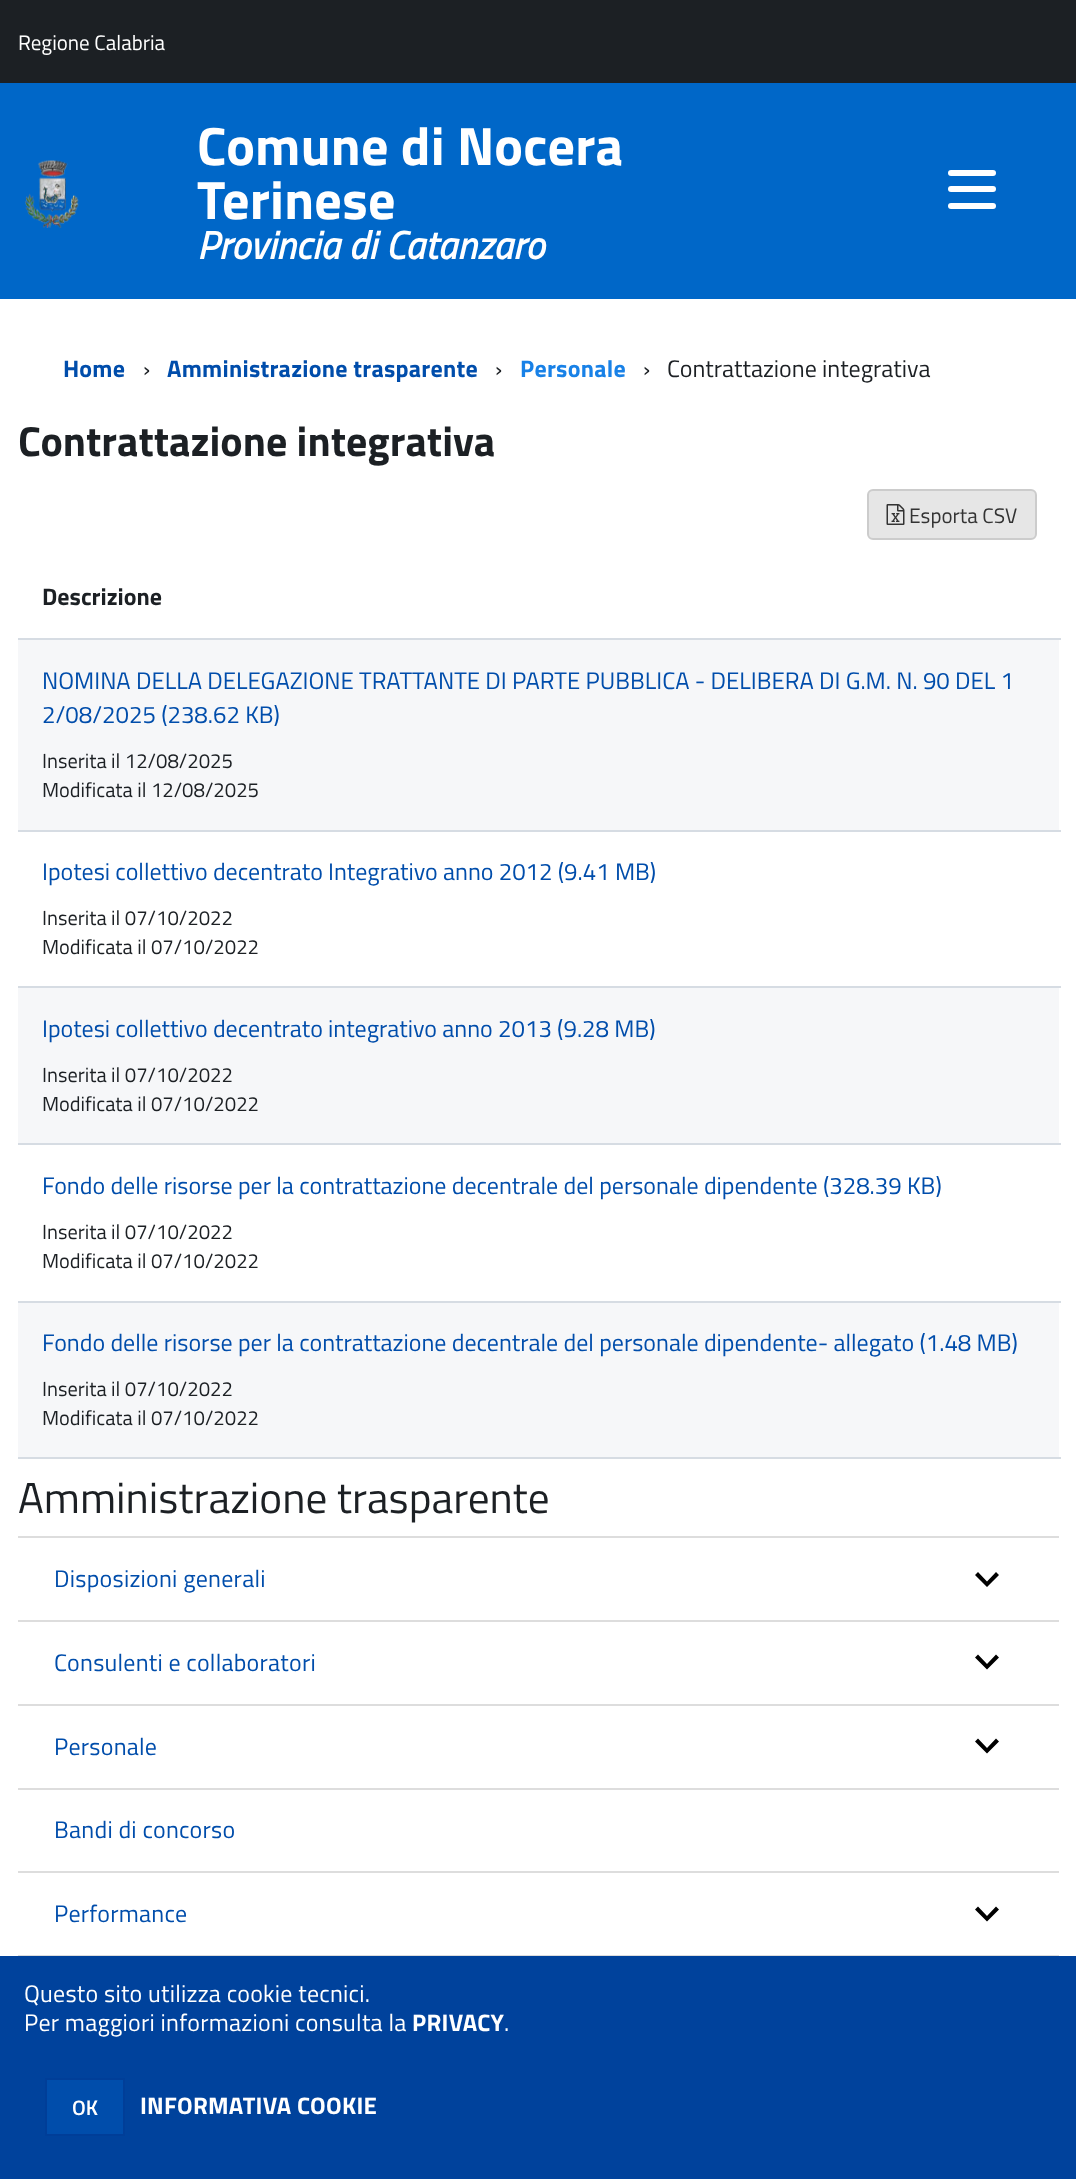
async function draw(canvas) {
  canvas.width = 1076;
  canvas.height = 2179;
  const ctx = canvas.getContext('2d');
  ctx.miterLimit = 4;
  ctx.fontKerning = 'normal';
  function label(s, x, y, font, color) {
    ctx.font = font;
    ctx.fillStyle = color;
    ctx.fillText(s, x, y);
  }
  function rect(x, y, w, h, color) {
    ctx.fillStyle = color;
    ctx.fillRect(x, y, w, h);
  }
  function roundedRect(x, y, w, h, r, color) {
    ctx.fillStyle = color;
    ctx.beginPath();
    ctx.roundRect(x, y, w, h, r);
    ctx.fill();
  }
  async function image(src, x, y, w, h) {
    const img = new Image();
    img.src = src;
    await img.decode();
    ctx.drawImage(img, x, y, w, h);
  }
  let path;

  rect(0, 0, 1076, 2179, '#fff');
  rect(0, 0, 1076, 83, '#1c2024');
  label('Regione Calabria', 18, 50, '21px Titillium Web', '#fff');
  rect(0, 83, 1076, 216, '#0067c8');
  await image('assets/img1.png', 25, 160, 54, 68);
  ctx.letterSpacing = '0.25px';
  label('Comune di Nocera', 197, 165, 'bold 54px Titillium Web', '#fff');
  label('Terinese', 197, 219, 'bold 54px Titillium Web', '#fff');
  label('Provincia di Catanzaro', 197, 259, 'italic bold 39px Titillium Web', '#fff');
  roundedRect(948, 186, 48, 6, 3, '#fff');
  roundedRect(948, 170, 48, 6, 3, '#fff');
  roundedRect(948, 203, 48, 6, 3, '#fff');
  label('Home', 63, 377, 'bold 24px Titillium Web', '#004dab');
  ctx.letterSpacing = '0px';
  label('›', 143, 377, '24px Titillium Web', '#1c2024');
  ctx.letterSpacing = '0.25px';
  label('Amministrazione trasparente', 167, 377, 'bold 24px Titillium Web', '#004dab');
  ctx.letterSpacing = '0px';
  label('›', 495, 377, '24px Titillium Web', '#1c2024');
  ctx.letterSpacing = '0.25px';
  label('Personale', 520, 377, 'bold 24px Titillium Web', '#1881e7');
  ctx.letterSpacing = '0px';
  label('›', 643, 377, '24px Titillium Web', '#1c2024');
  label('Contrattazione integrativa', 667, 377, '24px Titillium Web', '#1c2024');
  label('Contrattazione integrativa', 18, 456, 'bold 42px Titillium Web', '#1c2024');
  ctx.fillStyle = '#e6e6e6';
  ctx.beginPath();
  ctx.roundRect(868, 490, 168, 49, 5);
  ctx.fill();
  ctx.strokeStyle = '#ccc';
  ctx.lineWidth = 2;
  ctx.stroke();
  await image('assets/img2.png', 886, 504, 19, 21);
  label('Esporta CSV', 909, 523, '21px Titillium Web', '#333');
  rect(18, 638, 1043, 2, '#d6dce3');
  label('Descrizione', 42, 605, 'bold 24px Titillium Web', '#1c2024');
  rect(18, 640, 1041, 190, '#f6f7f9');
  rect(18, 830, 1043, 2, '#d6dce3');
  label('NOMINA DELLA DELEGAZIONE TRATTANTE DI PARTE PUBBLICA - DELIBERA DI G.M. N. 90 DEL 1', 42, 689, '24px Titillium Web', '#004dab');
  label('2/08/2025 (238.62 KB)', 42, 723, '24px Titillium Web', '#004dab');
  label('Inserita il 12/08/2025', 42, 768, '20.4px Titillium Web', '#1c2024');
  label('Modificata il 12/08/2025', 42, 797, '20.4px Titillium Web', '#1c2024');
  rect(18, 986, 1043, 2, '#d6dce3');
  label('Ipotesi collettivo decentrato Integrativo anno 2012 (9.41 MB)', 42, 880, '24px Titillium Web', '#004dab');
  label('Inserita il 07/10/2022', 42, 925, '20.4px Titillium Web', '#1c2024');
  label('Modificata il 07/10/2022', 42, 954, '20.4px Titillium Web', '#1c2024');
  rect(18, 988, 1041, 155, '#f6f7f9');
  rect(18, 1143, 1043, 2, '#d6dce3');
  label('Ipotesi collettivo decentrato integrativo anno 2013 (9.28 MB)', 42, 1037, '24px Titillium Web', '#004dab');
  label('Inserita il 07/10/2022', 42, 1082, '20.4px Titillium Web', '#1c2024');
  label('Modificata il 07/10/2022', 42, 1111, '20.4px Titillium Web', '#1c2024');
  rect(18, 1301, 1043, 2, '#d6dce3');
  label('Fondo delle risorse per la contrattazione decentrale del personale dipendente (328.39 KB)', 42, 1194, '24px Titillium Web', '#004dab');
  label('Inserita il 07/10/2022', 42, 1239, '20.4px Titillium Web', '#1c2024');
  label('Modificata il 07/10/2022', 42, 1268, '20.4px Titillium Web', '#1c2024');
  rect(18, 1303, 1041, 154, '#f6f7f9');
  rect(18, 1457, 1043, 2, '#d6dce3');
  label('Fondo delle risorse per la contrattazione decentrale del personale dipendente- allegato (1.48 MB)', 42, 1351, '24px Titillium Web', '#004dab');
  label('Inserita il 07/10/2022', 42, 1396, '20.4px Titillium Web', '#1c2024');
  label('Modificata il 07/10/2022', 42, 1425, '20.4px Titillium Web', '#1c2024');
  label('Amministrazione trasparente', 18, 1513, '43.25px Titillium Web', '#1c2024');
  rect(18, 1536, 1041, 2, '#ddd');
  ctx.letterSpacing = '0.25px';
  label('Disposizioni generali', 54, 1587, '24px Titillium Web', '#004dab');
  ctx.fillStyle = '#000';
  path = new Path2D('M978 1572L975 1575L987 1587L999 1575L996 1572L987 1581.5Z');
  ctx.fill(path);
  rect(18, 1620, 1041, 2, '#ddd');
  label('Consulenti e collaboratori', 54, 1671, '24px Titillium Web', '#004dab');
  ctx.fillStyle = '#000';
  path = new Path2D('M978 1654.5L975 1657.5L987 1669.5L999 1657.5L996 1654.5L987 1664Z');
  ctx.fill(path);
  rect(18, 1704, 1041, 2, '#ddd');
  label('Personale', 54, 1755, '24px Titillium Web', '#004dab');
  ctx.fillStyle = '#000';
  path = new Path2D('M978 1738.5L975 1741.5L987 1753.5L999 1741.5L996 1738.5L987 1748Z');
  ctx.fill(path);
  rect(18, 1788, 1041, 2, '#ddd');
  label('Bandi di concorso', 54, 1838, '24px Titillium Web', '#004dab');
  rect(18, 1871, 1041, 2, '#ddd');
  label('Performance', 54, 1922, '24px Titillium Web', '#004dab');
  ctx.fillStyle = '#000';
  path = new Path2D('M978 1906.5L975 1909.5L987 1921.5L999 1909.5L996 1906.5L987 1916Z');
  ctx.fill(path);
  rect(18, 1955, 1041, 1, '#ddd');
  rect(0, 1956, 1076, 223, '#00429c');
  label('Questo sito utilizza cookie tecnici.', 24, 2002, '24px Titillium Web', '#fff');
  label('Per maggiori informazioni consulta la', 24, 2031, '24px Titillium Web', '#fff');
  label('PRIVACY', 412, 2031, 'bold 24px Titillium Web', '#fff');
  label('.', 504, 2031, '24px Titillium Web', '#fff');
  ctx.fillStyle = '#004dab';
  ctx.beginPath();
  ctx.rect(46, 2079, 78, 56);
  ctx.fill();
  ctx.strokeStyle = '#003e98';
  ctx.stroke();
  ctx.letterSpacing = '0px';
  label('OK', 72, 2115, '600 21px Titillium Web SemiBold', '#fff');
  ctx.letterSpacing = '0.25px';
  label('INFORMATIVA COOKIE', 140, 2114, 'bold 24px Titillium Web', '#fff');
}

draw(document.querySelector('canvas'));
